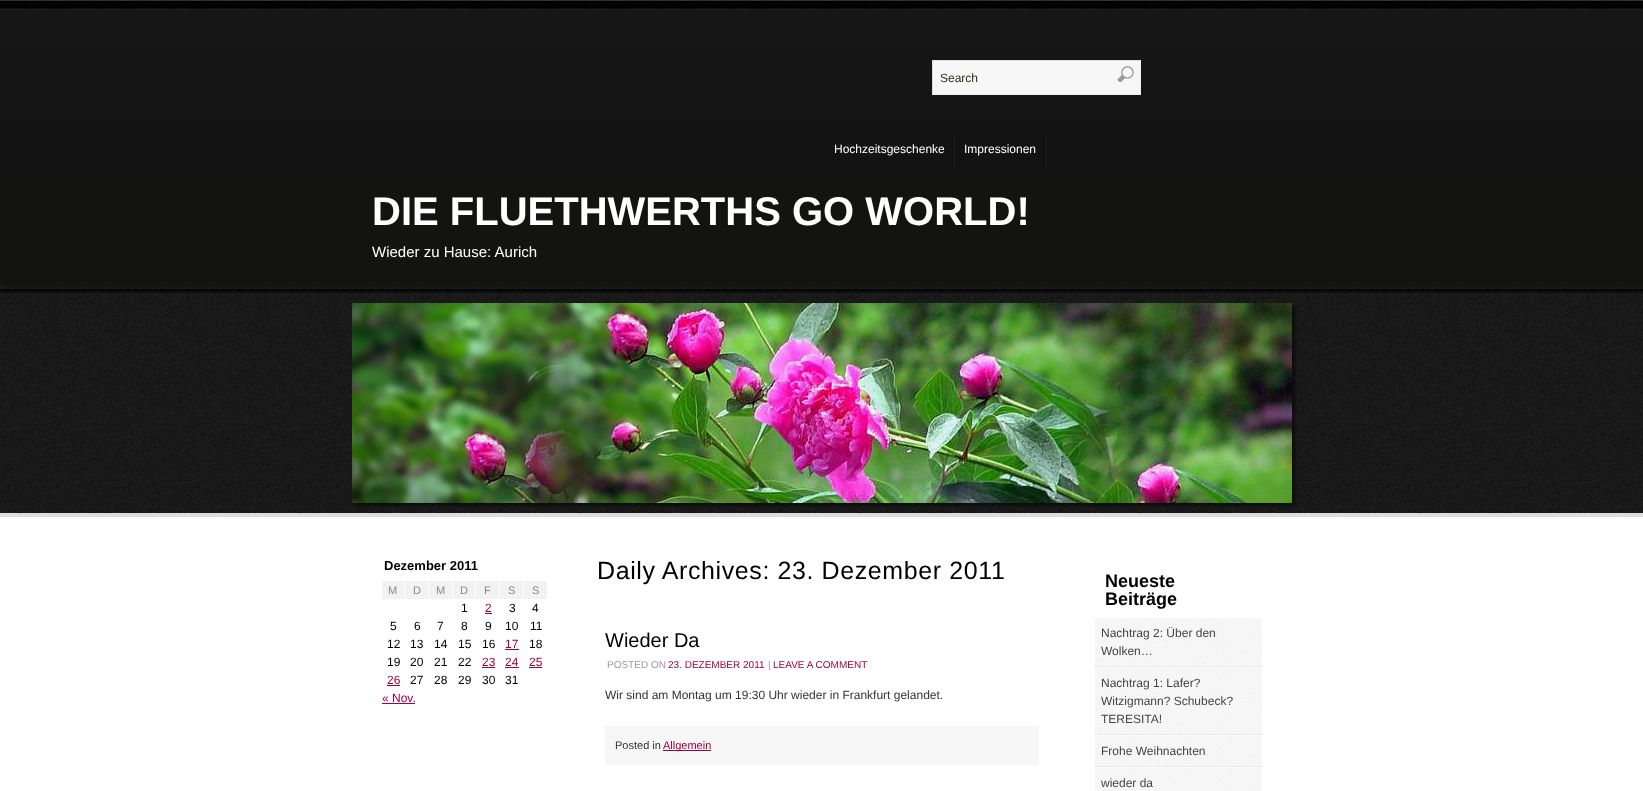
async function draw(canvas) {
  canvas.width = 1643;
  canvas.height = 791;
  const ctx = canvas.getContext('2d');
  ctx.miterLimit = 4;
  ctx.fontKerning = 'normal';
  function label(s, x, y, font, color) {
    ctx.font = font;
    ctx.fillStyle = color;
    ctx.fillText(s, x, y);
  }
  function rect(x, y, w, h, color) {
    ctx.fillStyle = color;
    ctx.fillRect(x, y, w, h);
  }
  async function image(src, x, y, w, h) {
    const img = new Image();
    img.src = src;
    await img.decode();
    ctx.drawImage(img, x, y, w, h);
  }
  let path;

  rect(0, 0, 1643, 791, '#fff');
  rect(0, 177, 1643, 108, '#131311');
  await image('assets/img1.png', 0, 0, 1643, 177);
  rect(933, 61, 207, 33, '#f7f7f7');
  rect(932, 60, 209, 1, '#ddd');
  rect(1140, 60, 1, 35, '#eee');
  rect(932, 94, 209, 1, '#eee');
  rect(932, 60, 1, 35, '#ddd');
  label('Search', 940, 82, '12px Liberation Sans', '#2e301b');
  await image('assets/img2.png', 1117, 66, 17, 16);
  await image('assets/img3.png', 952, 130, 2, 38);
  label('Hochzeitsgeschenke', 834, 153, '12px Liberation Sans', '#fff');
  await image('assets/img3.png', 1044, 130, 2, 38);
  label('Impressionen', 964, 153, '12px Liberation Sans', '#fff');
  label('DIE FLUETHWERTHS GO WORLD!', 372, 225, 'bold 40px Liberation Sans', '#fff');
  label('Wieder zu Hause: Aurich', 372, 257, '15px Liberation Sans', '#fff');
  rect(0, 285, 1643, 4, '#181919');
  await image('assets/img4.png', 3, 285, 1640, 2);
  await image('assets/img5.png', 0, 289, 1643, 4);
  await image('assets/img6.png', 0, 293, 1643, 220);
  ctx.fillStyle = '#00000080';
  ctx.filter = 'blur(1.5px)';
  ctx.beginPath();
  ctx.rect(355, 306, 940, 200);
  ctx.fill();
  ctx.filter = 'none';
  await image('assets/img7.png', 352, 303, 940, 200);
  rect(0, 513, 1643, 4, '#ddd');
  label('Dezember 2011', 384, 570, 'bold 13px Liberation Sans', '#000');
  rect(382, 581, 22, 18, '#f2f2f2');
  label('M', 388, 594, '11px Liberation Sans', '#888');
  rect(405, 581, 23, 18, '#f2f2f2');
  label('D', 413, 594, '11px Liberation Sans', '#888');
  rect(429, 581, 23, 18, '#f2f2f2');
  label('M', 436, 594, '11px Liberation Sans', '#888');
  rect(453, 581, 22, 18, '#f2f2f2');
  label('D', 460, 594, '11px Liberation Sans', '#888');
  rect(476, 581, 23, 18, '#f2f2f2');
  label('F', 484, 594, '11px Liberation Sans', '#888');
  rect(500, 581, 23, 18, '#f2f2f2');
  label('S', 508, 594, '11px Liberation Sans', '#888');
  rect(524, 581, 23, 18, '#f2f2f2');
  label('S', 532, 594, '11px Liberation Sans', '#888');
  label('1', 461, 612, '12px Liberation Sans', '#000');
  label('2', 485, 612, '12px Liberation Sans', '#a0003d');
  rect(485, 613, 7, 1, '#a0003d');
  label('3', 509, 612, '12px Liberation Sans', '#000');
  label('4', 532, 612, '12px Liberation Sans', '#000');
  label('5', 390, 630, '12px Liberation Sans', '#000');
  label('6', 414, 630, '12px Liberation Sans', '#000');
  label('7', 437, 630, '12px Liberation Sans', '#000');
  label('8', 461, 630, '12px Liberation Sans', '#000');
  label('9', 485, 630, '12px Liberation Sans', '#000');
  label('10', 505, 630, '12px Liberation Sans', '#000');
  label('11', 530, 630, '12px Liberation Sans', '#000');
  label('12', 387, 648, '12px Liberation Sans', '#000');
  label('13', 410, 648, '12px Liberation Sans', '#000');
  label('14', 434, 648, '12px Liberation Sans', '#000');
  label('15', 458, 648, '12px Liberation Sans', '#000');
  label('16', 482, 648, '12px Liberation Sans', '#000');
  label('17', 505, 648, '12px Liberation Sans', '#a0003d');
  rect(505, 649, 14, 1, '#a0003d');
  label('18', 529, 648, '12px Liberation Sans', '#000');
  label('19', 387, 666, '12px Liberation Sans', '#000');
  label('20', 410, 666, '12px Liberation Sans', '#000');
  label('21', 434, 666, '12px Liberation Sans', '#000');
  label('22', 458, 666, '12px Liberation Sans', '#000');
  label('23', 482, 666, '12px Liberation Sans', '#a0003d');
  rect(482, 667, 13, 1, '#a0003d');
  label('24', 505, 666, '12px Liberation Sans', '#a0003d');
  rect(505, 667, 14, 1, '#a0003d');
  label('25', 529, 666, '12px Liberation Sans', '#a0003d');
  rect(529, 667, 13, 1, '#a0003d');
  label('26', 387, 684, '12px Liberation Sans', '#a0003d');
  rect(387, 685, 13, 1, '#a0003d');
  label('27', 410, 684, '12px Liberation Sans', '#000');
  label('28', 434, 684, '12px Liberation Sans', '#000');
  label('29', 458, 684, '12px Liberation Sans', '#000');
  label('30', 482, 684, '12px Liberation Sans', '#000');
  label('31', 505, 684, '12px Liberation Sans', '#000');
  label('« Nov.', 382, 702, '12px Liberation Sans', '#a0003d');
  rect(382, 703, 33, 1, '#a0003d');
  ctx.letterSpacing = '0.6px';
  label('Daily Archives: 23. Dezember 2011', 597, 579, '25px Liberation Sans', '#000');
  ctx.letterSpacing = '0px';
  label('Wieder Da', 605, 647, '20px Liberation Sans', '#000');
  label('POSTED ON', 607, 668, '10px Liberation Sans', '#999897');
  label('23. DEZEMBER 2011', 668, 668, '10px Liberation Sans', '#a0003d');
  label('|', 768, 668, '10px Liberation Sans', '#999897');
  label('LEAVE A COMMENT', 773, 668, '10px Liberation Sans', '#a0003d');
  label('Wir sind am Montag um 19:30 Uhr wieder in Frankfurt gelandet.', 605, 699, '12px Liberation Sans', '#333');
  rect(605, 726, 434, 39, '#f6f6f6');
  label('Posted in', 615, 749, '11px Liberation Sans', '#333');
  rect(663, 750, 48, 1, '#a0003d');
  label('Allgemein', 663, 749, '11px Liberation Sans', '#a0003d');
  label('Neueste', 1105, 587, 'bold 18px Liberation Sans', '#000');
  label('Beiträge', 1105, 605, 'bold 18px Liberation Sans', '#000');
  await image('assets/img8.png', 1095, 618, 167, 49);
  path = new Path2D('M1095 666.5H1262');
  ctx.strokeStyle = '#ddd';
  ctx.setLineDash([1, 1]);
  ctx.stroke(path);
  label('Nachtrag 2: Über den', 1101, 637, '12px Liberation Sans', '#444');
  label('Wolken…', 1101, 655, '12px Liberation Sans', '#444');
  await image('assets/img9.png', 1095, 668, 167, 67);
  path = new Path2D('M1095 734.5H1262');
  ctx.stroke(path);
  label('Nachtrag 1: Lafer?', 1101, 687, '12px Liberation Sans', '#444');
  label('Witzigmann? Schubeck?', 1101, 705, '12px Liberation Sans', '#444');
  label('TERESITA!', 1101, 723, '12px Liberation Sans', '#444');
  await image('assets/img10.png', 1095, 736, 167, 31);
  path = new Path2D('M1095 766.5H1262');
  ctx.stroke(path);
  label('Frohe Weihnachten', 1101, 755, '12px Liberation Sans', '#444');
  await image('assets/img11.png', 1095, 768, 167, 23);
  label('wieder da', 1101, 787, '12px Liberation Sans', '#444');
}

draw(document.querySelector('canvas'));
